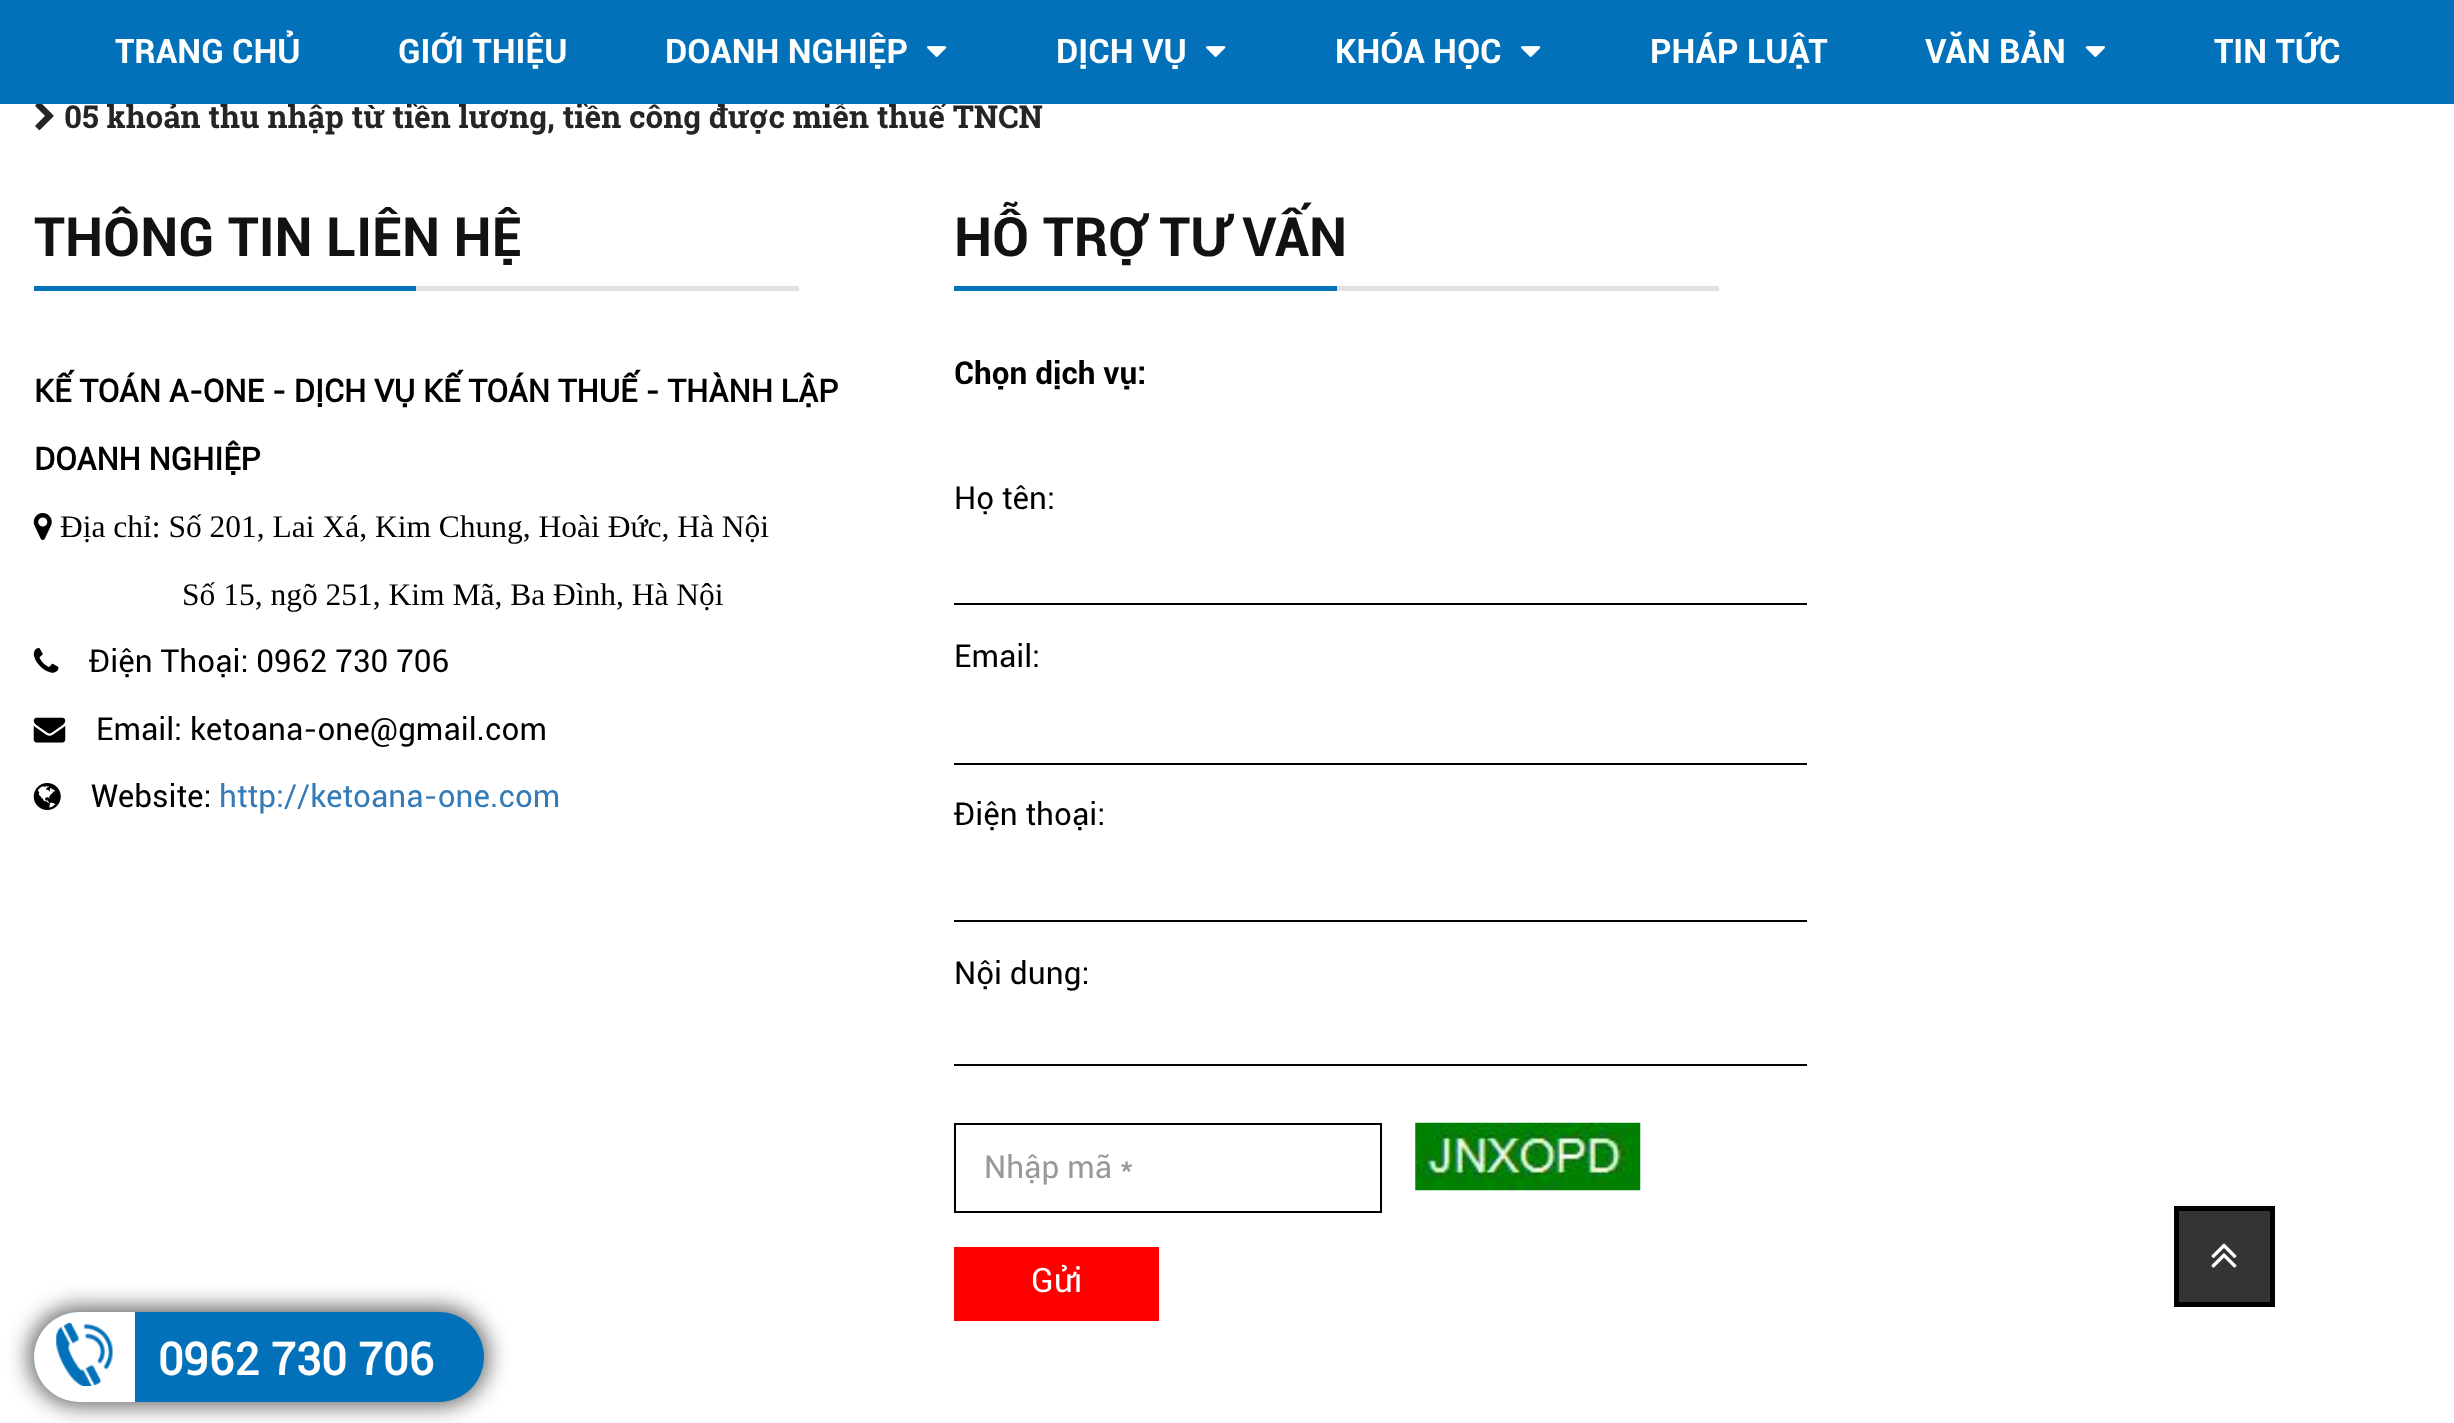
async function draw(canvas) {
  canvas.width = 2454;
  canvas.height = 1423;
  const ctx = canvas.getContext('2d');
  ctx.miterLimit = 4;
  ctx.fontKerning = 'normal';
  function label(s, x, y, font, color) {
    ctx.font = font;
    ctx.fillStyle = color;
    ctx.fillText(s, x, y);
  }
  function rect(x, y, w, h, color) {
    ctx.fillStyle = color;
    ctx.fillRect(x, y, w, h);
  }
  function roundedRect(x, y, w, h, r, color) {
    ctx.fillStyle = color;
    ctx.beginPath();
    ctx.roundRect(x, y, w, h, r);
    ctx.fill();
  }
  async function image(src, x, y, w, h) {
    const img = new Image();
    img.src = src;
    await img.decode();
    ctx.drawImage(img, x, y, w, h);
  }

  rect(0, 0, 2454, 1423, '#fff');
  label('05 khoản thu nhập từ tiền lương, tiền công được miễn thuế TNCN', 64, 128, 'bold 31.5px Roboto Slab', '#252525');
  rect(0, 0, 2454, 104, '#0271b9');
  label('TRANG CHỦ', 115, 63, 'bold 33.75px "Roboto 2"', '#fff');
  label('GIỚI THIỆU', 398, 63, 'bold 33.75px "Roboto 2"', '#fff');
  label('DOANH NGHIỆP', 665, 63, 'bold 33.75px "Roboto 2"', '#fff');
  await image('assets/img1.png', 927, 46, 20, 11);
  label('DỊCH VỤ', 1056, 63, 'bold 33.75px "Roboto 2"', '#fff');
  await image('assets/img1.png', 1206, 46, 20, 11);
  label('KHÓA HỌC', 1335, 63, 'bold 33.75px "Roboto 2"', '#fff');
  await image('assets/img1.png', 1521, 46, 20, 11);
  label('PHÁP LUẬT', 1650, 63, 'bold 33.75px "Roboto 2"', '#fff');
  label('VĂN BẢN', 1925, 63, 'bold 33.75px "Roboto 2"', '#fff');
  await image('assets/img2.png', 2085, 46, 20, 11);
  label('TIN TỨC', 2214, 63, 'bold 33.75px "Roboto 2"', '#fff');
  await image('assets/img3.png', 35, 104, 19, 26);
  label('THÔNG TIN LIÊN HỆ', 34, 256, 'bold 54px "Roboto 2"', '#131212');
  rect(34, 286, 382, 5, '#0271b9');
  rect(416, 286, 383, 5, '#e1e1e1');
  label('KẾ TOÁN A-ONE - DỊCH VỤ KẾ TOÁN THUẾ - THÀNH LẬP', 34, 402, 'bold 31.5px Roboto', '#000');
  label('DOANH NGHIỆP', 34, 470, 'bold 31.5px Roboto', '#000');
  await image('assets/img4.png', 33, 513, 19, 27);
  label('Địa chỉ: Số 201, Lai Xá, Kim Chung, Hoài Đức, Hà Nội', 60, 537, '31.5px Liberation Serif', '#000');
  label('Số 15, ngõ 251, Kim Mã, Ba Đình, Hà Nội', 182, 605, '31.5px Liberation Serif', '#000');
  await image('assets/img5.png', 33, 648, 26, 25);
  label('Điện Thoại: 0962 730 706', 89, 672, '31.5px Roboto', '#000');
  await image('assets/img6.png', 33, 717, 33, 26);
  label('Email: ketoana-one@gmail.com', 96, 740, '31.5px Roboto', '#000');
  await image('assets/img7.png', 33, 783, 28, 27);
  label('Website:', 91, 807, '31.5px Roboto', '#000');
  label('http://ketoana-one.com', 219, 807, '31.5px Roboto', '#337ab7');
  label('HỖ TRỢ TƯ VẤN', 954, 256, 'bold 54px "Roboto 2"', '#131212');
  rect(954, 286, 383, 5, '#0271b9');
  rect(1337, 286, 382, 5, '#e1e1e1');
  label('Chọn dịch vụ:', 954, 384, 'bold 31.5px "Roboto 2"', '#000');
  label('Họ tên:', 954, 509, '31.5px Roboto', '#000');
  rect(954, 603, 853, 2, '#000');
  label('Email:', 954, 667, '31.5px Roboto', '#000');
  rect(954, 763, 853, 2, '#000');
  label('Điện thoại:', 954, 825, '31.5px Roboto', '#000');
  rect(954, 920, 853, 2, '#000');
  label('Nội dung:', 954, 984, '31.5px Roboto', '#000');
  rect(954, 1064, 853, 2, '#000');
  ctx.strokeStyle = '#000';
  ctx.lineWidth = 2;
  ctx.strokeRect(955, 1124, 426, 88);
  label('Nhập mã *', 984, 1178, '31.5px Roboto', '#999');
  await image('assets/img8.png', 1415, 1122, 226, 69);
  rect(954, 1247, 205, 74, '#f00');
  label('Gửi', 1031, 1292, '33.75px Roboto', '#fff');
  ctx.fillStyle = '#00000099';
  ctx.filter = 'blur(11px)';
  ctx.beginPath();
  ctx.roundRect(29, 1307, 459, 99, 49.5);
  ctx.fill();
  ctx.filter = 'none';
  roundedRect(34, 1312, 450, 90, 45, '#0271b9');
  ctx.fillStyle = '#fff';
  ctx.beginPath();
  ctx.roundRect(34, 1312, 101, 90, [45, 0, 0, 45]);
  ctx.fill();
  await image('assets/img9.png', 56, 1323, 57, 63);
  label('0962 730 706', 158, 1375, 'bold 45px Roboto', '#fff');
  ctx.fillStyle = '#343434';
  ctx.beginPath();
  ctx.rect(2176.5, 1208.5, 96, 96);
  ctx.fill();
  ctx.lineWidth = 5;
  ctx.stroke();
  await image('assets/img10.png', 2211, 1243, 26, 25);
}

draw(document.querySelector('canvas'));
